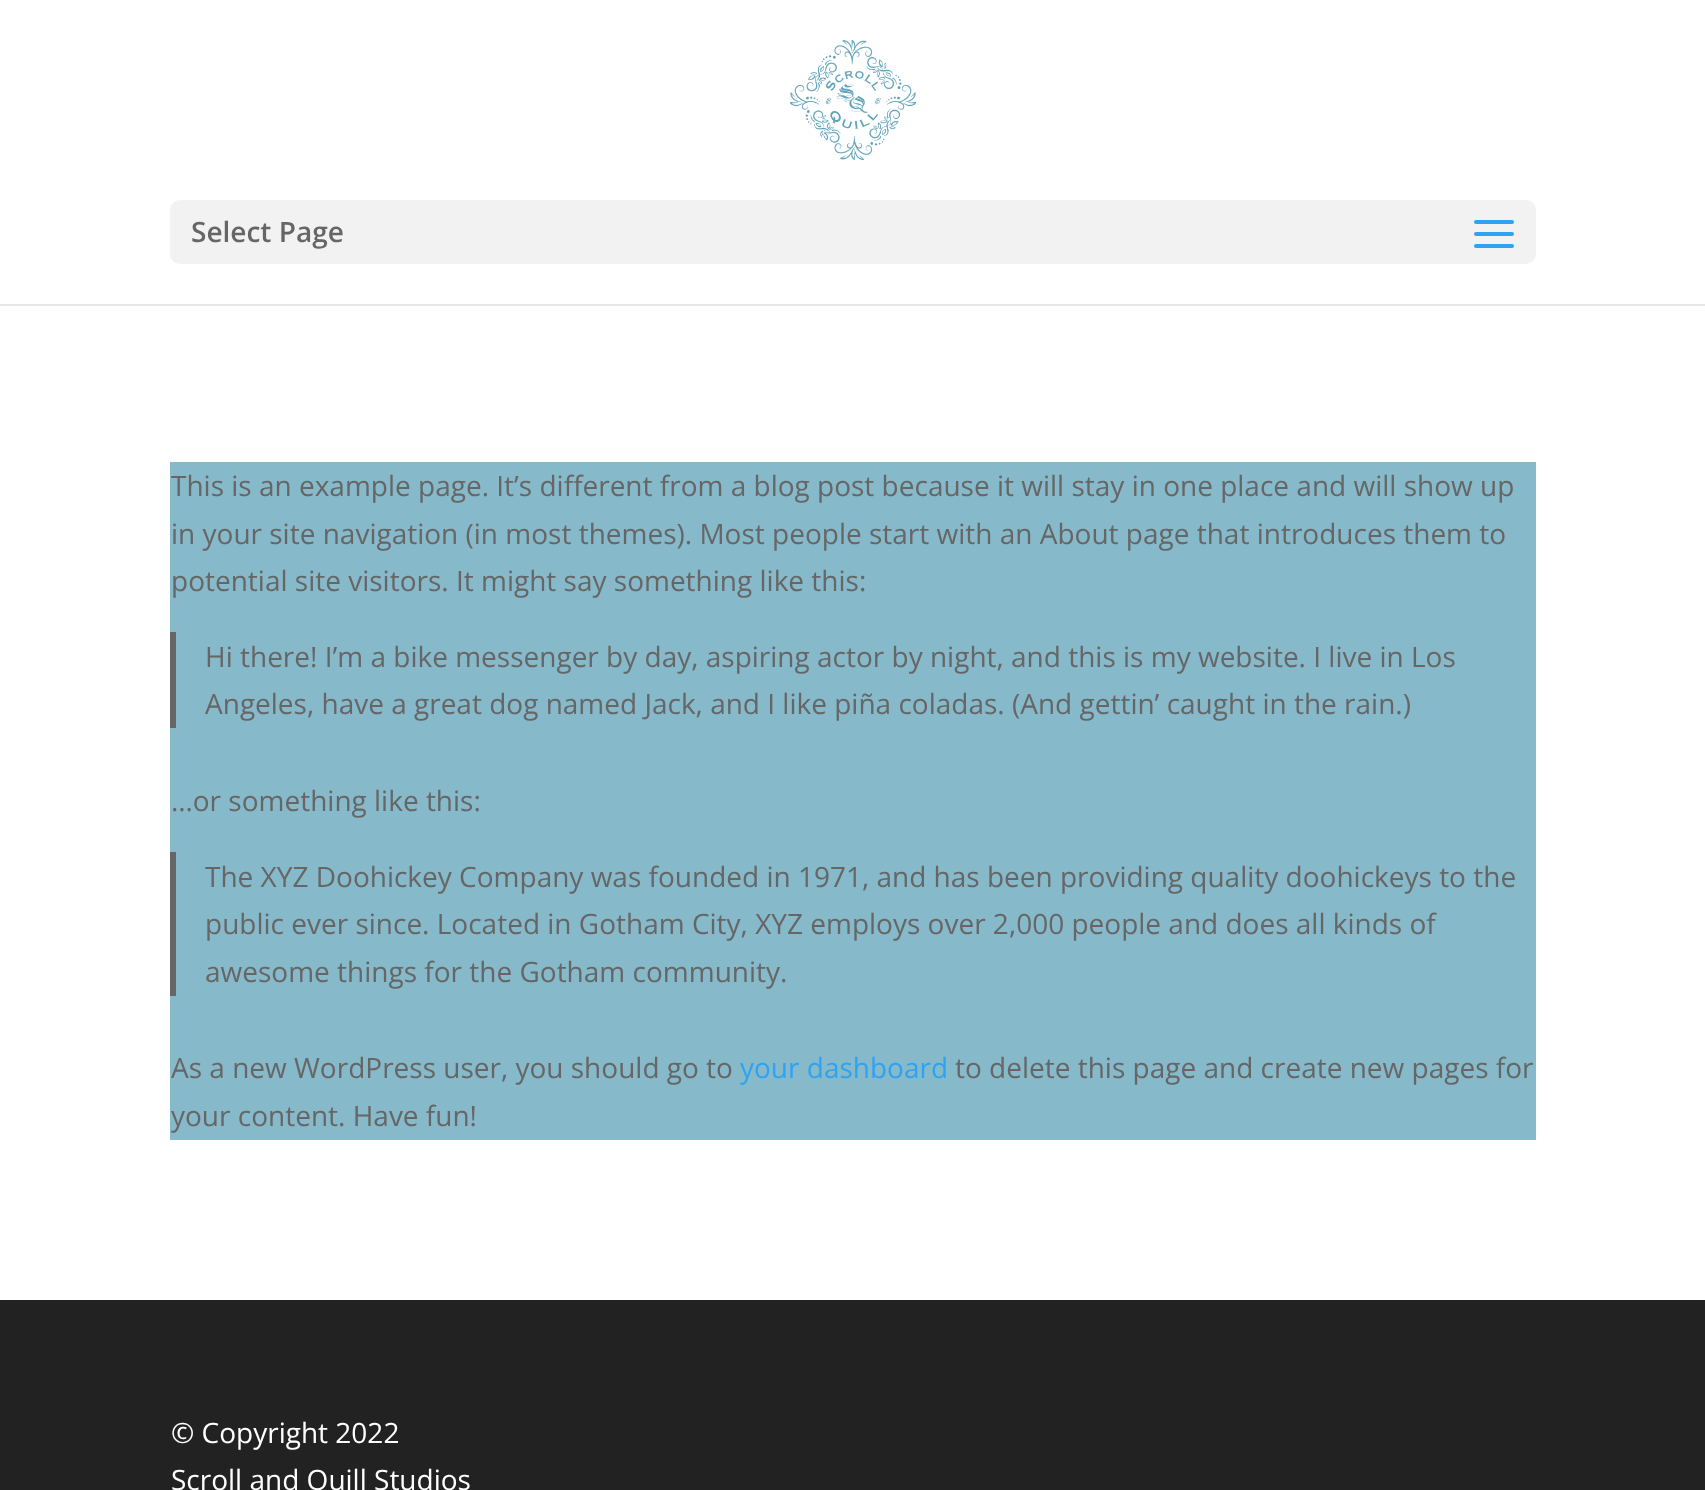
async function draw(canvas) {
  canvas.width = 1705;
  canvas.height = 1490;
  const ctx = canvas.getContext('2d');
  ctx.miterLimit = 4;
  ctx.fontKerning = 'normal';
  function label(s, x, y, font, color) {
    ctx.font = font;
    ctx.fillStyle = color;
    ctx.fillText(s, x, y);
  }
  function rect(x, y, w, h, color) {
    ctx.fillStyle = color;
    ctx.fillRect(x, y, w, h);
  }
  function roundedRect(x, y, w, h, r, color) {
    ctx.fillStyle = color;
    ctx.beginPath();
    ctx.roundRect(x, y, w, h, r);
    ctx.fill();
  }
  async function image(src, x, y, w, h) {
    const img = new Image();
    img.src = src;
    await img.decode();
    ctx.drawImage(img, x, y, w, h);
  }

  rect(0, 0, 1705, 1490, '#fff');
  rect(0, 304, 1705, 2, '#e6e6e6');
  await image('assets/img1.png', 790, 40, 126, 120);
  roundedRect(170, 200, 1366, 64, 10, '#f2f2f2');
  label('Select Page', 191, 242, '600 28px Open Sans', '#666');
  await image('assets/img2.png', 1474, 220, 40, 28);
  rect(170, 462, 1366, 678, '#86b9ca');
  label('This is an example page. It’s different from a blog post because it will stay in one place and will show up', 171, 496, '28px Open Sans', '#666');
  label('in your site navigation (in most themes). Most people start with an About page that introduces them to', 171, 544, '28px Open Sans', '#666');
  label('potential site visitors. It might say something like this:', 171, 591, '28px Open Sans', '#666');
  rect(170, 632, 6, 96, '#666');
  label('Hi there! I’m a bike messenger by day, aspiring actor by night, and this is my website. I live in Los', 205, 667, '28px Open Sans', '#666');
  label('Angeles, have a great dog named Jack, and I like piña coladas. (And gettin’ caught in the rain.)', 205, 714, '28px Open Sans', '#666');
  label('…or something like this:', 171, 811, '28px Open Sans', '#666');
  rect(170, 852, 6, 144, '#666');
  label('The XYZ Doohickey Company was founded in 1971, and has been providing quality doohickeys to the', 205, 887, '28px Open Sans', '#666');
  label('public ever since. Located in Gotham City, XYZ employs over 2,000 people and does all kinds of', 205, 934, '28px Open Sans', '#666');
  label('awesome things for the Gotham community.', 205, 982, '28px Open Sans', '#666');
  label('As a new WordPress user, you should go to', 171, 1078, '28px Open Sans', '#666');
  label('your dashboard', 740, 1078, '28px Open Sans', '#2ea3f2');
  label('to delete this page and create new pages for', 955, 1078, '28px Open Sans', '#666');
  label('your content. Have fun!', 171, 1126, '28px Open Sans', '#666');
  rect(0, 1300, 1705, 190, '#222');
  label('© Copyright 2022', 171, 1443, '28px Open Sans', '#fff');
  label('Scroll and Quill Studios', 171, 1490, '28px Open Sans', '#fff');
}

draw(document.querySelector('canvas'));
